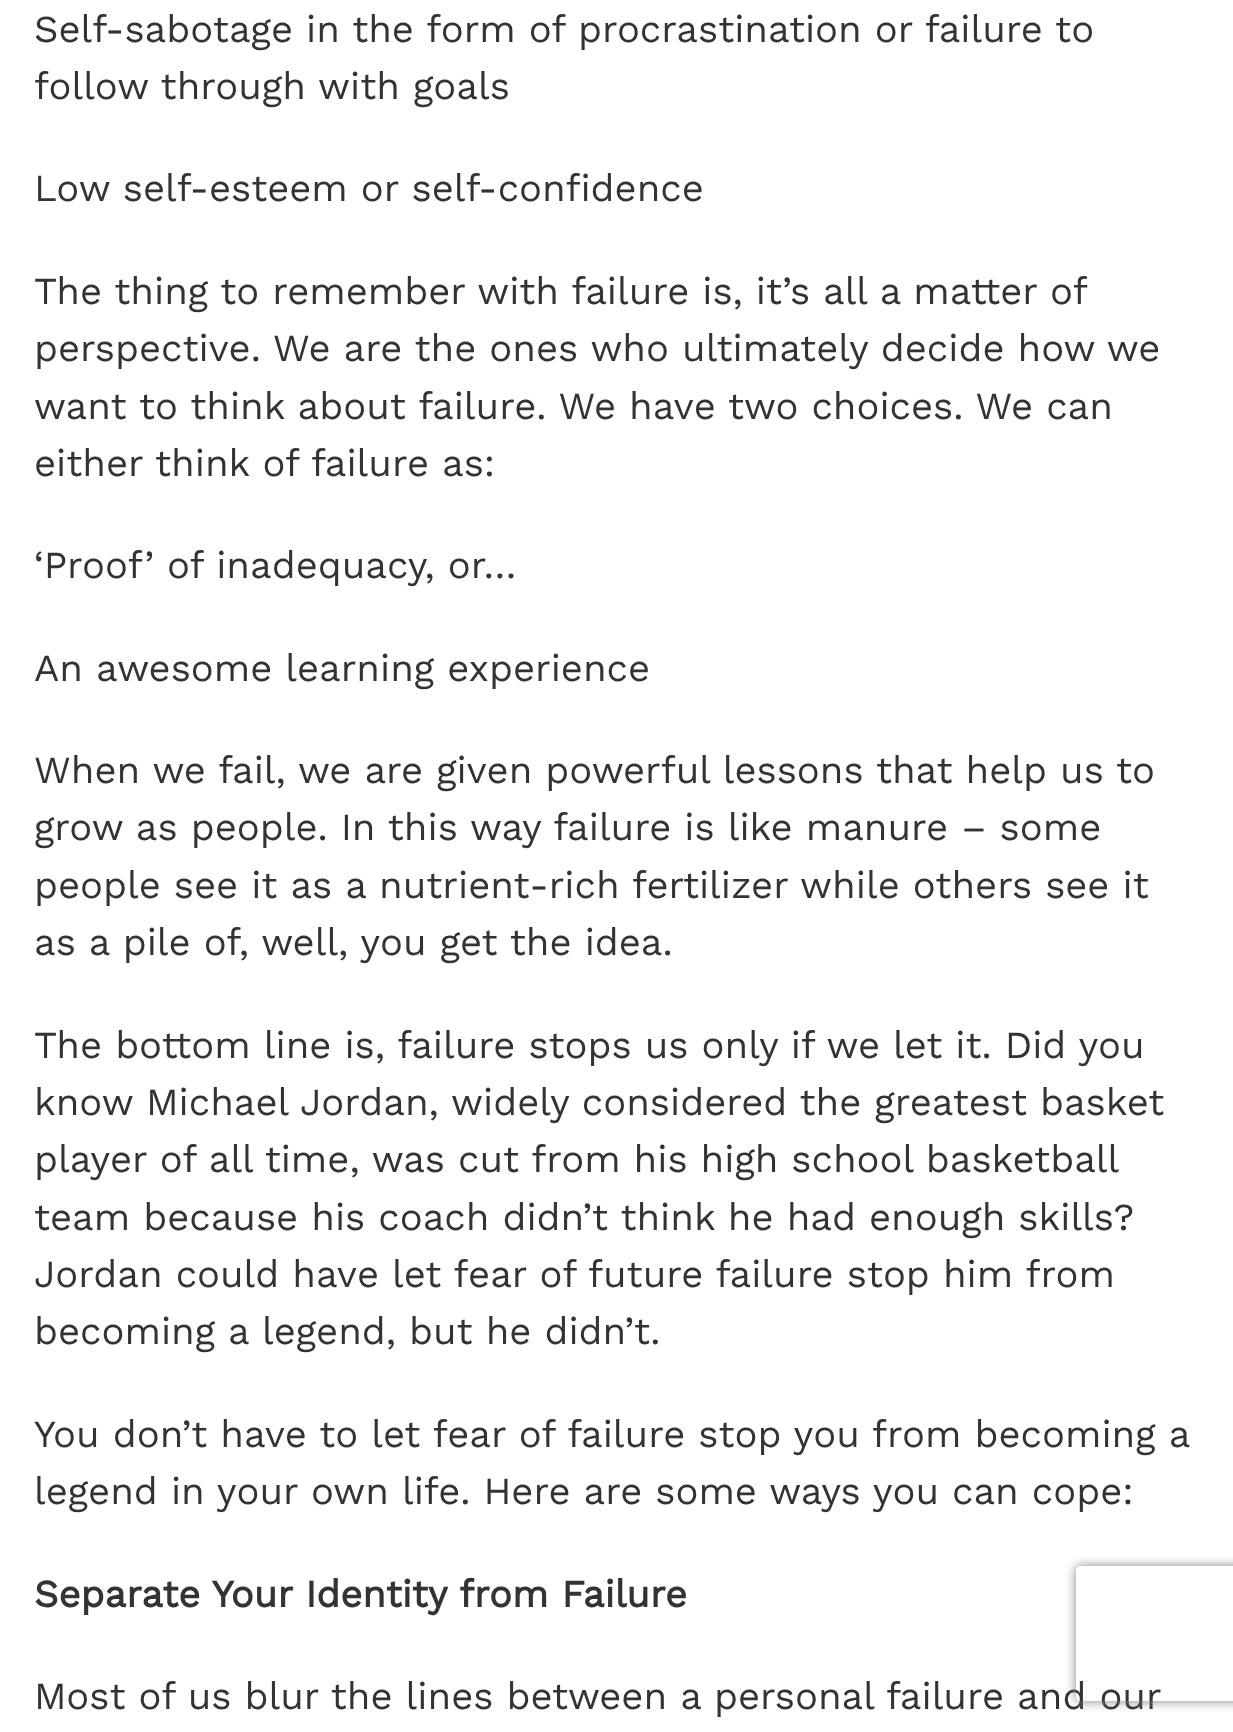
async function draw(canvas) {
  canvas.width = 1233;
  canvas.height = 1732;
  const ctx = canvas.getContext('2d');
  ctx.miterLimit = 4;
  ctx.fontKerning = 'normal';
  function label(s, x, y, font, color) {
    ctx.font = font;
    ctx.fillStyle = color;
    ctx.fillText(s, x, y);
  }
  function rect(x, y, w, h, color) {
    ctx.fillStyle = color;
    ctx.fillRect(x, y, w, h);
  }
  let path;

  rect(0, 0, 1233, 1732, '#fff');
  label('Self-sabotage in the form of procrastination or failure to', 34, 42, '38.25px Work Sans', '#333');
  label('follow through with goals', 34, 99, '38.25px Work Sans', '#333');
  label('Low self-esteem or self-confidence', 34, 201, '38.25px Work Sans', '#333');
  ctx.wordSpacing = '-0.1px';
  label('The thing to remember with failure is, it’s all a matter of', 34, 304, '38.25px Work Sans', '#333');
  ctx.wordSpacing = '0px';
  label('perspective. We are the ones who ultimately decide how we', 34, 361, '38.25px Work Sans', '#333');
  label('want to think about failure. We have two choices. We can', 34, 419, '38.25px Work Sans', '#333');
  label('either think of failure as:', 34, 476, '38.25px Work Sans', '#333');
  label('‘Proof’ of inadequacy, or…', 34, 578, '38.25px Work Sans', '#333');
  label('An awesome learning experience', 34, 681, '38.25px Work Sans', '#333');
  label('When we fail, we are given powerful lessons that help us to', 34, 783, '38.25px Work Sans', '#333');
  label('grow as people. In this way failure is like manure – some', 34, 840, '38.25px Work Sans', '#333');
  label('people see it as a nutrient-rich fertilizer while others see it', 34, 898, '38.25px Work Sans', '#333');
  label('as a pile of, well, you get the idea.', 34, 955, '38.25px Work Sans', '#333');
  label('The bottom line is, failure stops us only if we let it. Did you', 34, 1058, '38.25px Work Sans', '#333');
  label('know Michael Jordan, widely considered the greatest basket', 34, 1115, '38.25px Work Sans', '#333');
  ctx.wordSpacing = '-0.1px';
  label('player of all time, was cut from his high school basketball', 34, 1172, '38.25px Work Sans', '#333');
  ctx.wordSpacing = '0px';
  label('team because his coach didn’t think he had enough skills?', 34, 1230, '38.25px Work Sans', '#333');
  label('Jordan could have let fear of future failure stop him from', 34, 1287, '38.25px Work Sans', '#333');
  label('becoming a legend, but he didn’t.', 34, 1344, '38.25px Work Sans', '#333');
  label('You don’t have to let fear of failure stop you from becoming a', 34, 1447, '38.25px Work Sans', '#333');
  label('legend in your own life. Here are some ways you can cope:', 34, 1504, '38.25px Work Sans', '#333');
  label('Separate Your Identity from Failure', 34, 1607, 'bold 38.25px Work Sans', '#333');
  label('Most of us blur the lines between a personal failure and our', 34, 1709, '38.25px Work Sans', '#333');
  ctx.save();
  path = new Path2D('M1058 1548H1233V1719H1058ZM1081 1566H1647C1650 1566 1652 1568 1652 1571V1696C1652 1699 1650 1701 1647 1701H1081C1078 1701 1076 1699 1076 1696V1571C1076 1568 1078 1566 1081 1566Z');
  ctx.clip(path, 'evenodd');
  ctx.fillStyle = '#808080';
  ctx.filter = 'blur(5.5px)';
  ctx.beginPath();
  ctx.roundRect(1076, 1566, 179, 135, 5);
  ctx.fill();
  ctx.filter = 'none';
  ctx.restore();
}

draw(document.querySelector('canvas'));
